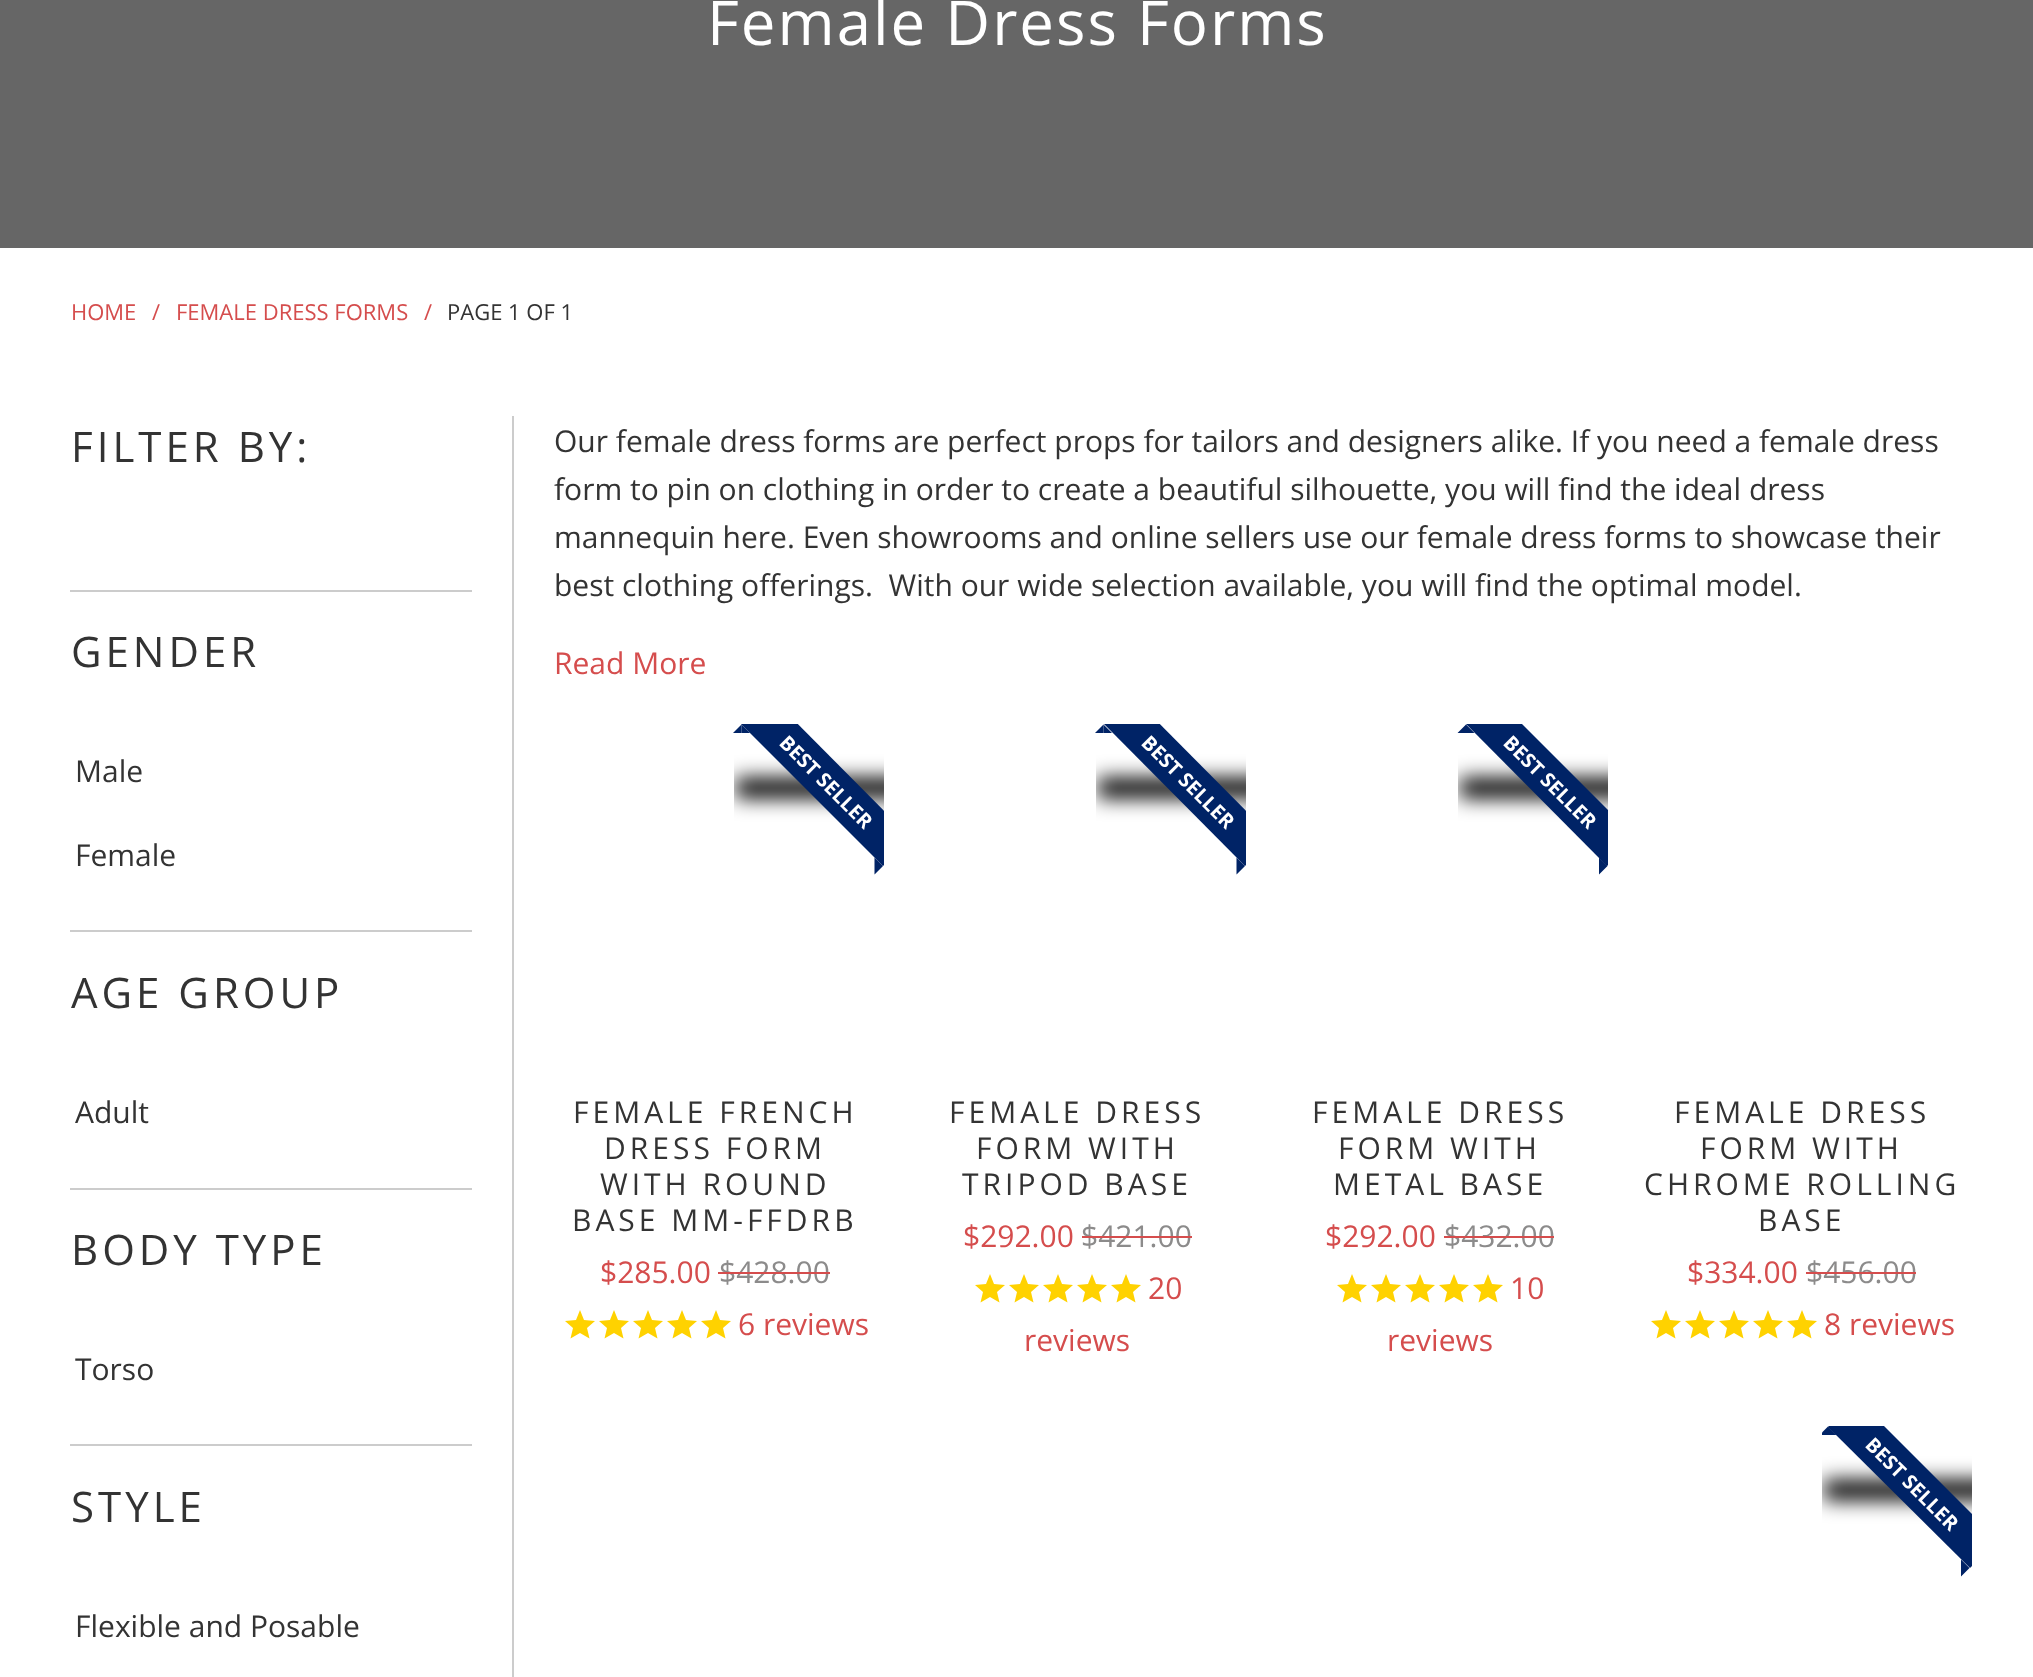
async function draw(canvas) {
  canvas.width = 2033;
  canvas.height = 1677;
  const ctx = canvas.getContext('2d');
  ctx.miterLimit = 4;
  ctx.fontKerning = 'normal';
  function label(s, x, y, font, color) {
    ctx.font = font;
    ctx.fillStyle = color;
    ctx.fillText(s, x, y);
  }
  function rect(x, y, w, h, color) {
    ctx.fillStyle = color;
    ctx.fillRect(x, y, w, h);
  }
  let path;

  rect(0, 0, 2033, 1677, '#fff');
  rect(0, 0, 2033, 248, '#666');
  ctx.letterSpacing = '2px';
  label('Female Dress Forms', 707, 45, '61.75px Open Sans', '#fff');
  ctx.letterSpacing = '0px';
  label('HOME', 71, 320, '22px Open Sans', '#d54d4d');
  label('/', 152, 320, '22px Open Sans', '#d54d4d');
  label('FEMALE DRESS FORMS', 176, 320, '22px Open Sans', '#d54d4d');
  label('/', 424, 320, '22px Open Sans', '#d54d4d');
  label('PAGE 1 OF 1', 447, 320, '22px Open Sans', '#333');
  rect(512, 416, 2, 1261, '#ccc');
  ctx.letterSpacing = '4px';
  label('FILTER BY:', 71, 462, '42px Open Sans', '#333');
  rect(70, 590, 402, 2, '#ccc');
  label('GENDER', 71, 667, '42px Open Sans', '#333');
  ctx.letterSpacing = '0px';
  label('Male', 75, 782, '30px Open Sans', '#333');
  label('Female', 75, 866, '30px Open Sans', '#333');
  rect(70, 930, 402, 2, '#ccc');
  ctx.letterSpacing = '4px';
  label('AGE GROUP', 71, 1008, '42px Open Sans', '#333');
  ctx.letterSpacing = '0px';
  label('Adult', 75, 1123, '30px Open Sans', '#333');
  rect(70, 1188, 402, 2, '#ccc');
  ctx.letterSpacing = '4px';
  label('BODY TYPE', 71, 1265, '42px Open Sans', '#333');
  ctx.letterSpacing = '0px';
  label('Torso', 75, 1380, '30px Open Sans', '#333');
  rect(70, 1444, 402, 2, '#ccc');
  ctx.letterSpacing = '4px';
  label('STYLE', 71, 1522, '42px Open Sans', '#333');
  ctx.letterSpacing = '0px';
  label('Flexible and Posable', 75, 1637, '30px Open Sans', '#333');
  label('Our female dress forms are perfect props for tailors and designers alike. If you need a female dress', 554, 452, '30px Open Sans', '#333');
  label('form to pin on clothing in order to create a beautiful silhouette, you will find the ideal dress', 554, 500, '30px Open Sans', '#333');
  label('mannequin here. Even showrooms and online sellers use our female dress forms to showcase their', 554, 548, '30px Open Sans', '#333');
  label('best clothing offerings.  With our wide selection available, you will find the optimal model.', 554, 596, '30px Open Sans', '#333');
  label('Read More', 554, 674, '30px Open Sans', '#d54d4d');
  ctx.save();
  ctx.beginPath();
  ctx.rect(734, 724, 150, 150);
  ctx.clip();
  ctx.fillStyle = '#000';
  ctx.filter = 'blur(10px)';
  ctx.beginPath();
  ctx.rect(736, 778, 180, 20);
  ctx.fill();
  ctx.filter = 'none';
  ctx.restore();
  ctx.save();
  ctx.beginPath();
  ctx.rect(734, 724, 150, 150);
  ctx.clip();
  ctx.fillStyle = '#002366';
  path = new Path2D('M770 696L911 838L883 866L741 724Z');
  ctx.fill(path);
  ctx.restore();
  ctx.fillStyle = '#002366';
  path = new Path2D('M741.5 724.5L750 733H741.5Z');
  ctx.fill(path);
  path = new Path2D('M733 733L741.5 724.5V733Z');
  ctx.fill(path);
  ctx.font = 'bold 20px Open Sans';
  ctx.fillStyle = '#fff';
  ctx.save();
  ctx.translate(778, 744);
  ctx.rotate(45 * Math.PI / 180);
  ctx.fillText('BEST SELLER', 0, 0);
  ctx.restore();
  ctx.fillStyle = '#002366';
  path = new Path2D('M874.5 857.5L883 866H874.5ZM883 866L874.5 874.5V866Z');
  ctx.fill(path);
  ctx.letterSpacing = '4px';
  label('FEMALE FRENCH', 573, 1123, '30px Open Sans', '#333');
  label('DRESS FORM', 604, 1159, '30px Open Sans', '#333');
  label('WITH ROUND', 600, 1195, '30px Open Sans', '#333');
  label('BASE MM-FFDRB', 572, 1231, '30px Open Sans', '#333');
  ctx.letterSpacing = '0px';
  label('$285.00', 600, 1283, '30px Open Sans', '#d54d4d');
  label('$428.00', 719, 1283, '30px Open Sans', '#8c8b8b');
  rect(718, 1272, 112, 2, '#d54d4d');
  ctx.fillStyle = '#ffd200';
  path = new Path2D('M580 1333L570.5 1338.5L573 1328L565 1321L576 1320L580 1310L584 1320L595 1321L587 1328L589.5 1338.5Z');
  ctx.fill(path);
  path = new Path2D('M614 1333L604.5 1338.5L607 1328L599 1321L610 1320L614 1310L618 1320L629 1321L621 1328L623.5 1338.5Z');
  ctx.fill(path);
  path = new Path2D('M648 1333L638.5 1338.5L641 1328L633 1321L644 1320L648 1310L652 1320L663 1321L655 1328L657.5 1338.5Z');
  ctx.fill(path);
  path = new Path2D('M682 1333L672.5 1338.5L675 1328L667 1321L678 1320L682 1310L686 1320L697 1321L689 1328L691.5 1338.5Z');
  ctx.fill(path);
  path = new Path2D('M716 1333L706.5 1338.5L709 1328L701 1321L712 1320L716 1310L720 1320L731 1321L723 1328L725.5 1338.5Z');
  ctx.fill(path);
  label('6 reviews', 738, 1335, '30px Open Sans', '#d54d4d');
  ctx.save();
  ctx.beginPath();
  ctx.rect(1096, 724, 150, 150);
  ctx.clip();
  ctx.fillStyle = '#000';
  ctx.filter = 'blur(10px)';
  ctx.beginPath();
  ctx.rect(1098, 778, 180, 20);
  ctx.fill();
  ctx.filter = 'none';
  ctx.restore();
  ctx.save();
  ctx.beginPath();
  ctx.rect(1096, 724, 150, 150);
  ctx.clip();
  ctx.fillStyle = '#002366';
  path = new Path2D('M1132 696L1273 838L1245 866L1104 724Z');
  ctx.fill(path);
  ctx.restore();
  ctx.fillStyle = '#002366';
  path = new Path2D('M1103.5 724.5L1112 733H1103.5Z');
  ctx.fill(path);
  path = new Path2D('M1095 733L1103.5 724.5V733Z');
  ctx.fill(path);
  ctx.font = 'bold 20px Open Sans';
  ctx.fillStyle = '#fff';
  ctx.save();
  ctx.translate(1140, 744);
  ctx.rotate(45 * Math.PI / 180);
  ctx.fillText('BEST SELLER', 0, 0);
  ctx.restore();
  ctx.fillStyle = '#002366';
  path = new Path2D('M1236.5 857.5L1245 866H1236.5ZM1245 866L1236.5 874.5V866Z');
  ctx.fill(path);
  ctx.letterSpacing = '4px';
  label('FEMALE DRESS', 949, 1123, '30px Open Sans', '#333');
  label('FORM WITH', 976, 1159, '30px Open Sans', '#333');
  label('TRIPOD BASE', 962, 1195, '30px Open Sans', '#333');
  ctx.letterSpacing = '0px';
  label('$292.00', 963, 1247, '30px Open Sans', '#d54d4d');
  label('$421.00', 1081, 1247, '30px Open Sans', '#8c8b8b');
  rect(1082, 1236, 110, 2, '#d54d4d');
  ctx.fillStyle = '#ffd200';
  path = new Path2D('M990 1297L980.5 1302.5L983 1292L975 1285L986 1284L990 1274L994 1284L1005 1285L997 1292L999.5 1302.5Z');
  ctx.fill(path);
  path = new Path2D('M1024 1297L1014.5 1302.5L1017 1292L1009 1285L1020 1284L1024 1274L1028 1284L1039 1285L1031 1292L1033.5 1302.5Z');
  ctx.fill(path);
  path = new Path2D('M1058 1297L1048.5 1302.5L1051 1292L1043 1285L1054 1284L1058 1274L1062 1284L1073 1285L1065 1292L1067.5 1302.5Z');
  ctx.fill(path);
  path = new Path2D('M1092 1297L1082.5 1302.5L1085 1292L1077 1285L1088 1284L1092 1274L1096 1284L1107 1285L1099 1292L1101.5 1302.5Z');
  ctx.fill(path);
  path = new Path2D('M1126 1297L1116.5 1302.5L1119 1292L1111 1285L1122 1284L1126 1274L1130 1284L1141 1285L1133 1292L1135.5 1302.5Z');
  ctx.fill(path);
  label('20', 1148, 1299, '30px Open Sans', '#d54d4d');
  label('reviews', 1024, 1351, '30px Open Sans', '#d54d4d');
  ctx.save();
  ctx.beginPath();
  ctx.rect(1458, 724, 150, 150);
  ctx.clip();
  ctx.fillStyle = '#000';
  ctx.filter = 'blur(10px)';
  ctx.beginPath();
  ctx.rect(1460, 778, 180, 20);
  ctx.fill();
  ctx.filter = 'none';
  ctx.restore();
  ctx.save();
  ctx.beginPath();
  ctx.rect(1458, 724, 150, 150);
  ctx.clip();
  ctx.fillStyle = '#002366';
  path = new Path2D('M1494 696L1636 838L1607 866L1466 724Z');
  ctx.fill(path);
  ctx.restore();
  ctx.fillStyle = '#002366';
  path = new Path2D('M1466 724.5L1474.5 733H1466ZM1457.5 733L1466 724.5V733Z');
  ctx.fill(path);
  ctx.font = 'bold 20px Open Sans';
  ctx.fillStyle = '#fff';
  ctx.save();
  ctx.translate(1502, 744);
  ctx.rotate(45 * Math.PI / 180);
  ctx.fillText('BEST SELLER', 0, 0);
  ctx.restore();
  ctx.fillStyle = '#002366';
  path = new Path2D('M1599 857.5L1607.5 866H1599ZM1607.5 866L1599 874.5V866Z');
  ctx.fill(path);
  ctx.letterSpacing = '4px';
  label('FEMALE DRESS', 1312, 1123, '30px Open Sans', '#333');
  label('FORM WITH', 1338, 1159, '30px Open Sans', '#333');
  label('METAL BASE', 1333, 1195, '30px Open Sans', '#333');
  ctx.letterSpacing = '0px';
  label('$292.00', 1325, 1247, '30px Open Sans', '#d54d4d');
  label('$432.00', 1444, 1247, '30px Open Sans', '#8c8b8b');
  rect(1444, 1236, 110, 2, '#d54d4d');
  ctx.fillStyle = '#ffd200';
  path = new Path2D('M1352 1297L1342.5 1302.5L1345 1292L1337 1285L1348 1284L1352 1274L1356 1284L1367 1285L1359 1292L1361.5 1302.5Z');
  ctx.fill(path);
  path = new Path2D('M1386 1297L1376.5 1302.5L1379 1292L1371 1285L1382 1284L1386 1274L1390 1284L1401 1285L1393 1292L1395.5 1302.5Z');
  ctx.fill(path);
  path = new Path2D('M1420 1297L1410.5 1302.5L1413 1292L1405 1285L1416 1284L1420 1274L1424 1284L1435 1285L1427 1292L1429.5 1302.5Z');
  ctx.fill(path);
  path = new Path2D('M1454 1297L1444.5 1302.5L1447 1292L1439 1285L1450 1284L1454 1274L1458 1284L1469 1285L1461 1292L1463.5 1302.5Z');
  ctx.fill(path);
  path = new Path2D('M1488 1297L1478.5 1302.5L1481 1292L1473 1285L1484 1284L1488 1274L1492 1284L1503 1285L1495 1292L1497.5 1302.5Z');
  ctx.fill(path);
  label('10', 1510, 1299, '30px Open Sans', '#d54d4d');
  label('reviews', 1387, 1351, '30px Open Sans', '#d54d4d');
  ctx.letterSpacing = '4px';
  label('FEMALE DRESS', 1674, 1123, '30px Open Sans', '#333');
  label('FORM WITH', 1700, 1159, '30px Open Sans', '#333');
  label('CHROME ROLLING', 1644, 1195, '30px Open Sans', '#333');
  label('BASE', 1758, 1231, '30px Open Sans', '#333');
  ctx.letterSpacing = '0px';
  label('$334.00', 1687, 1283, '30px Open Sans', '#d54d4d');
  label('$456.00', 1806, 1283, '30px Open Sans', '#8c8b8b');
  rect(1806, 1272, 110, 2, '#d54d4d');
  ctx.fillStyle = '#ffd200';
  path = new Path2D('M1666 1333L1656.5 1338.5L1659 1328L1651 1321L1662 1320L1666 1310L1670 1320L1681 1321L1673 1328L1675.5 1338.5Z');
  ctx.fill(path);
  path = new Path2D('M1700 1333L1690.5 1338.5L1693 1328L1685 1321L1696 1320L1700 1310L1704 1320L1715 1321L1707 1328L1709.5 1338.5Z');
  ctx.fill(path);
  path = new Path2D('M1734 1333L1724.5 1338.5L1727 1328L1719 1321L1730 1320L1734 1310L1738 1320L1749 1321L1741 1328L1743.5 1338.5Z');
  ctx.fill(path);
  path = new Path2D('M1768 1333L1758.5 1338.5L1761 1328L1753 1321L1764 1320L1768 1310L1772 1320L1783 1321L1775 1328L1777.5 1338.5Z');
  ctx.fill(path);
  path = new Path2D('M1802 1333L1792.5 1338.5L1795 1328L1787 1321L1798 1320L1802 1310L1806 1320L1817 1321L1809 1328L1811.5 1338.5Z');
  ctx.fill(path);
  label('8 reviews', 1824, 1335, '30px Open Sans', '#d54d4d');
  ctx.save();
  ctx.beginPath();
  ctx.rect(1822, 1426, 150, 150);
  ctx.clip();
  ctx.fillStyle = '#000';
  ctx.filter = 'blur(10px)';
  ctx.beginPath();
  ctx.rect(1824, 1480, 180, 20);
  ctx.fill();
  ctx.filter = 'none';
  ctx.restore();
  ctx.save();
  ctx.beginPath();
  ctx.rect(1822, 1426, 150, 150);
  ctx.clip();
  ctx.fillStyle = '#002366';
  path = new Path2D('M1856 1398L1998 1540L1970 1568L1828 1427Z');
  ctx.fill(path);
  ctx.restore();
  ctx.fillStyle = '#002366';
  path = new Path2D('M1828 1426.5L1836.5 1435H1828Z');
  ctx.fill(path);
  ctx.save();
  ctx.beginPath();
  ctx.rect(1822, 1426, 150, 150);
  ctx.clip();
  path = new Path2D('M1819.5 1435L1828 1426.5V1435Z');
  ctx.fill(path);
  ctx.restore();
  ctx.font = 'bold 20px Open Sans';
  ctx.fillStyle = '#fff';
  ctx.save();
  ctx.translate(1864, 1446);
  ctx.rotate(45 * Math.PI / 180);
  ctx.fillText('BEST SELLER', 0, 0);
  ctx.restore();
  ctx.fillStyle = '#002366';
  path = new Path2D('M1961 1559.5L1969.5 1568H1961ZM1969.5 1568L1961 1576.5V1568Z');
  ctx.fill(path);
}

draw(document.querySelector('canvas'));
